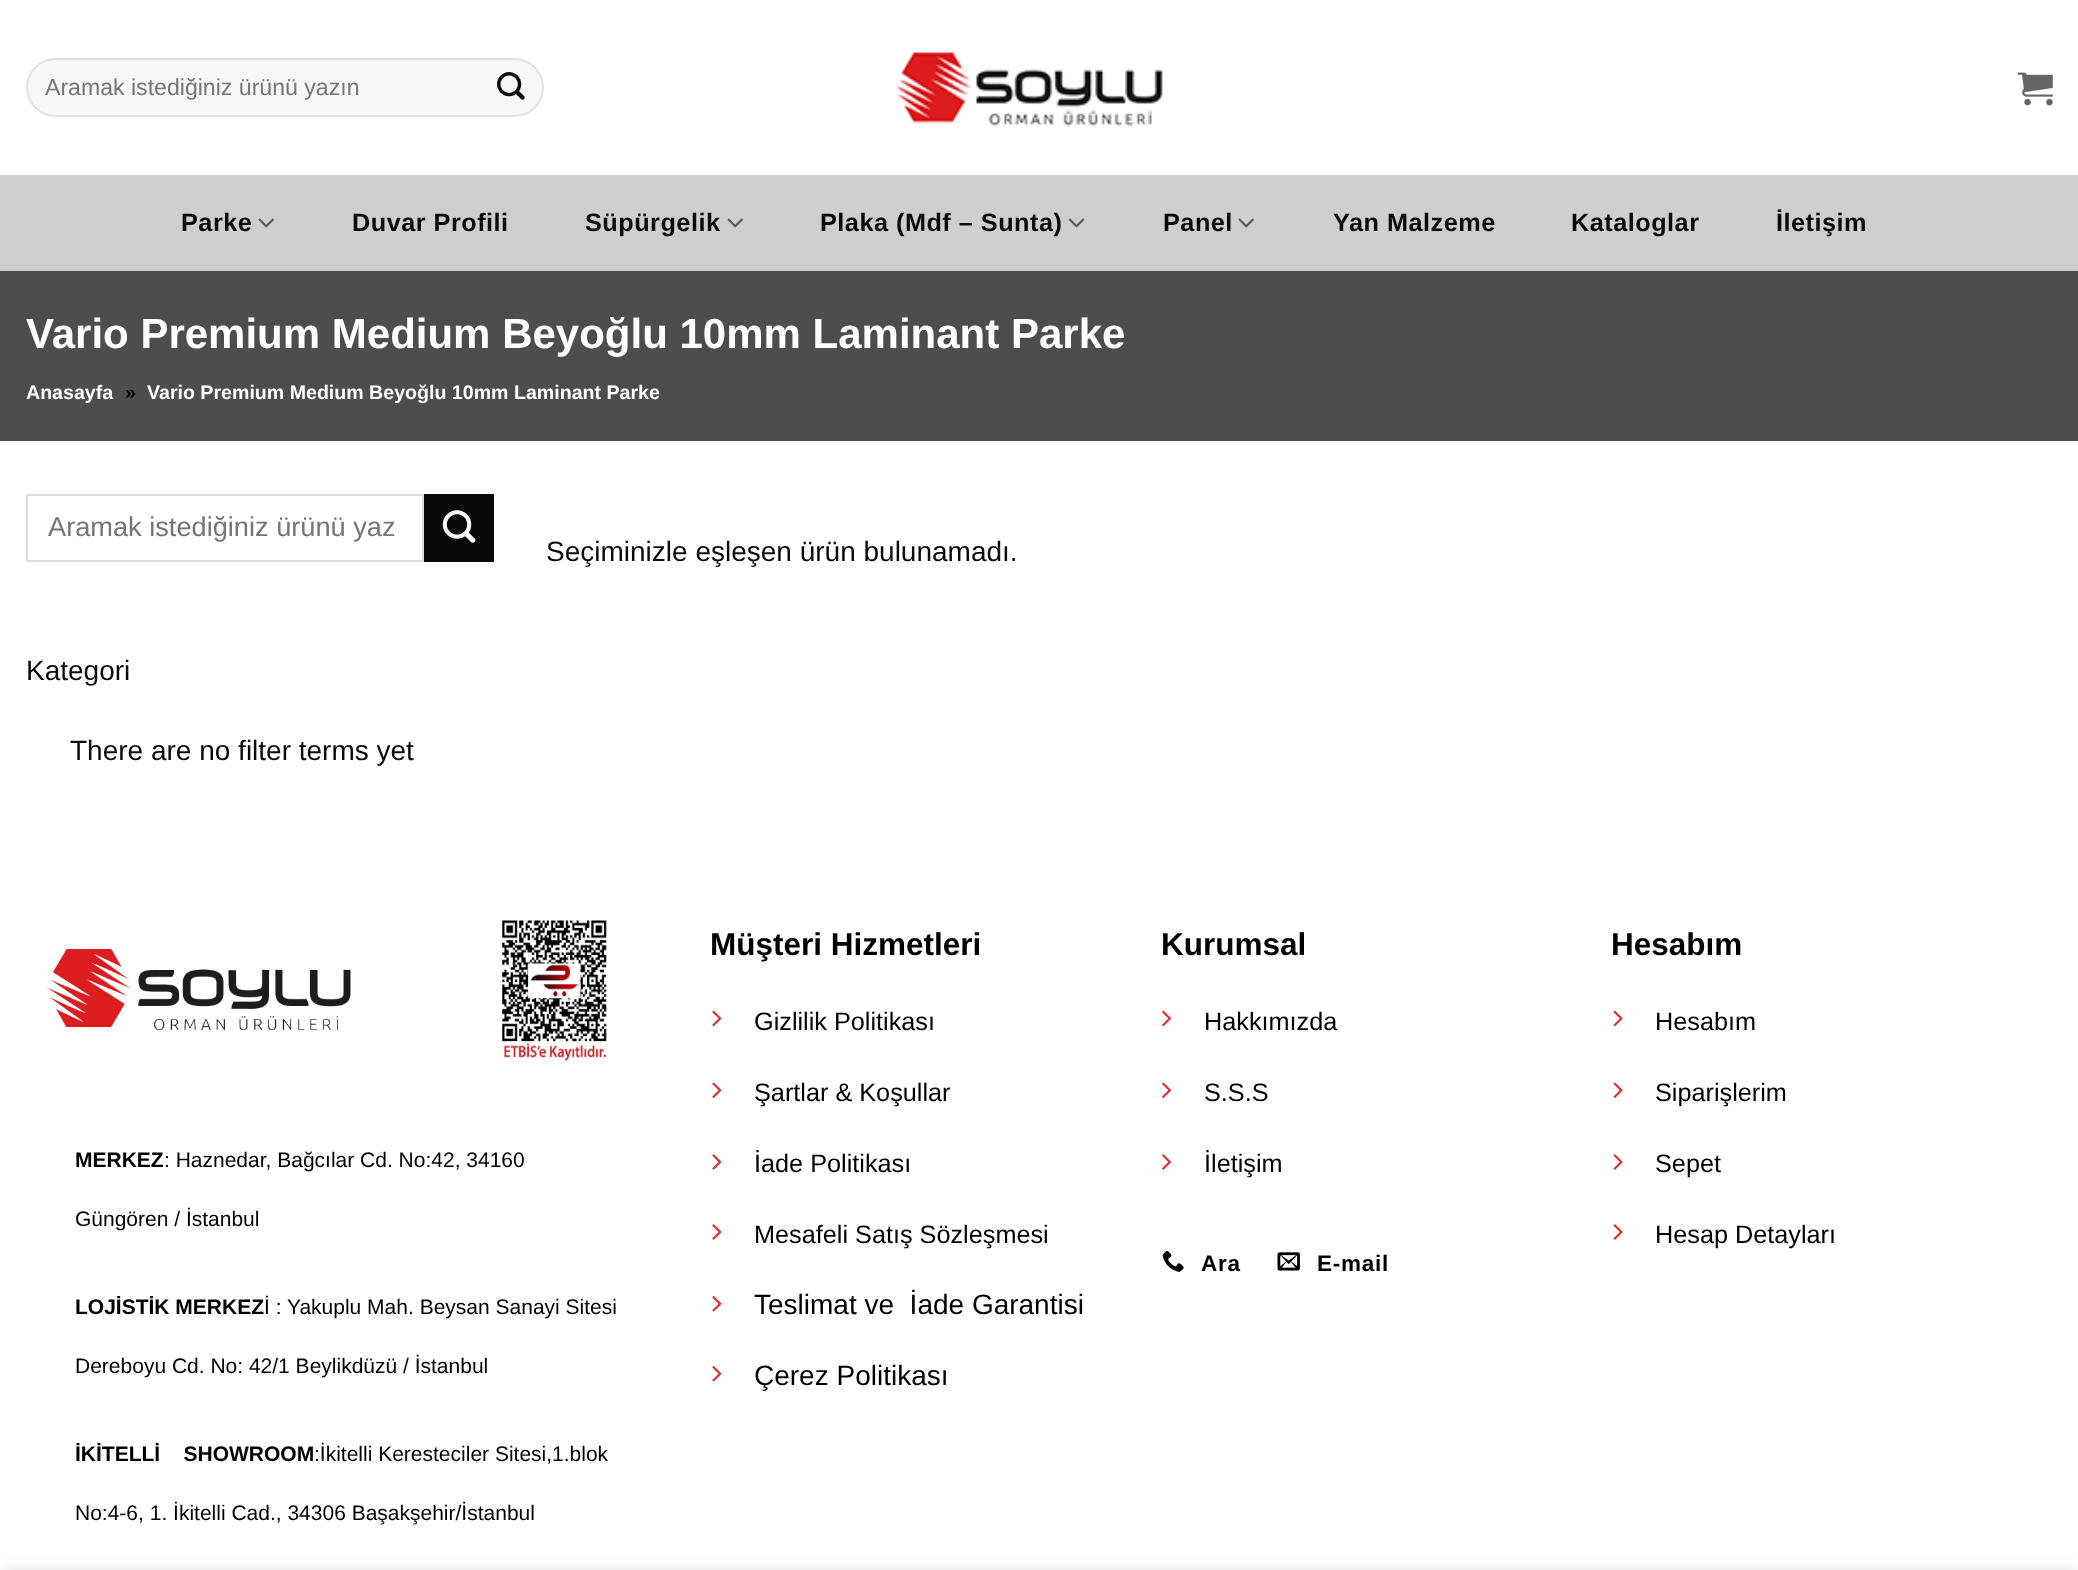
async function draw(canvas) {
  canvas.width = 2078;
  canvas.height = 1570;
  const ctx = canvas.getContext('2d');
  ctx.miterLimit = 4;
  ctx.fontKerning = 'normal';
  function label(s, x, y, font, color) {
    ctx.font = font;
    ctx.fillStyle = color;
    ctx.fillText(s, x, y);
  }
  function rect(x, y, w, h, color) {
    ctx.fillStyle = color;
    ctx.fillRect(x, y, w, h);
  }
  function roundedRect(x, y, w, h, r, color) {
    ctx.fillStyle = color;
    ctx.beginPath();
    ctx.roundRect(x, y, w, h, r);
    ctx.fill();
  }
  async function image(src, x, y, w, h) {
    const img = new Image();
    img.src = src;
    await img.decode();
    ctx.drawImage(img, x, y, w, h);
  }

  rect(0, 0, 2078, 1570, '#fff');
  roundedRect(26, 58, 518, 59, 29.5, '#f7f7f7');
  ctx.beginPath();
  ctx.roundRect(27, 59, 516, 57, 28.5);
  ctx.strokeStyle = '#00000017';
  ctx.lineWidth = 2;
  ctx.stroke();
  label('Aramak istediğiniz ürünü yazın', 45, 95, '23.1px Liberation Sans', '#757575');
  await image('assets/img1.png', 497, 72, 28, 28);
  await image('assets/img2.png', 895, 52, 268, 75);
  await image('assets/img3.png', 2017, 72, 36, 34);
  rect(0, 175, 2078, 96, '#cecece');
  ctx.letterSpacing = '0.5px';
  label('Parke', 181, 231, 'bold 25.25px Liberation Sans', '#0a0a0a');
  await image('assets/img4.png', 258, 218, 16, 10);
  label('Duvar Profili', 352, 231, 'bold 25.25px Liberation Sans', '#0a0a0a');
  label('Süpürgelik', 585, 231, 'bold 25.25px Liberation Sans', '#0a0a0a');
  await image('assets/img4.png', 727, 218, 16, 10);
  label('Plaka (Mdf – Sunta)', 820, 231, 'bold 25.25px Liberation Sans', '#0a0a0a');
  await image('assets/img5.png', 1068, 218, 17, 10);
  label('Panel', 1163, 231, 'bold 25.25px Liberation Sans', '#0a0a0a');
  await image('assets/img4.png', 1238, 218, 16, 10);
  label('Yan Malzeme', 1333, 231, 'bold 25.25px Liberation Sans', '#0a0a0a');
  label('Kataloglar', 1571, 231, 'bold 25.25px Liberation Sans', '#0a0a0a');
  label('İletişim', 1776, 231, 'bold 25.25px Liberation Sans', '#0a0a0a');
  rect(0, 271, 2078, 170, '#4d4d4d');
  ctx.letterSpacing = '0px';
  label('Vario Premium Medium Beyoğlu 10mm Laminant Parke', 26, 348, 'bold 42px Liberation Sans', '#fff');
  label('Anasayfa', 26, 399, 'bold 19.6px Liberation Sans', '#fff');
  label('»', 125, 399, 'bold 19.6px Liberation Sans', '#000');
  label('Vario Premium Medium Beyoğlu 10mm Laminant Parke', 147, 399, 'bold 19.6px Liberation Sans', '#fff');
  ctx.strokeStyle = '#ddd';
  ctx.strokeRect(27, 495, 396, 66);
  label('Aramak istediğiniz ürünü yaz', 48, 536, '27.2px Liberation Sans', '#757575');
  rect(424, 494, 70, 68, '#0a0a0a');
  await image('assets/img6.png', 442, 510, 34, 33);
  label('Kategori', 26, 680, '28px Liberation Sans', '#0a0a0a');
  label('There are no filter terms yet', 70, 760, '28px Liberation Sans', '#0a0a0a');
  label('Seçiminizle eşleşen ürün bulunamadı.', 546, 561, '28px Liberation Sans', '#0a0a0a');
  await image('assets/img7.png', 46, 949, 305, 82);
  await image('assets/img8.png', 502, 920, 105, 141);
  label('MERKEZ', 75, 1167, 'bold 21px Liberation Sans', '#000');
  label(': Haznedar, Bağcılar Cd. No:42, 34160', 164, 1167, '21px Liberation Sans', '#000');
  label('Güngören / İstanbul', 75, 1226, '21px Liberation Sans', '#000');
  label('LOJİSTİK MERKEZ', 75, 1314, 'bold 21px Liberation Sans', '#000');
  label('İ : Yakuplu Mah. Beysan Sanayi Sitesi', 264, 1314, '21px Liberation Sans', '#000');
  label('Dereboyu Cd. No: 42/1 Beylikdüzü / İstanbul', 75, 1373, '21px Liberation Sans', '#000');
  label('İKİTELLİ    SHOWROOM', 75, 1461, 'bold 21px Liberation Sans', '#000');
  label(':İkitelli Keresteciler Sitesi,1.blok', 314, 1461, '21px Liberation Sans', '#000');
  label('No:4-6, 1. İkitelli Cad., 34306 Başakşehir/İstanbul', 75, 1520, '21px Liberation Sans', '#000');
  label('Müşteri Hizmetleri', 710, 955, 'bold 31.5px Liberation Sans', '#000');
  await image('assets/img9.png', 712, 1010, 10, 17);
  label('Gizlilik Politikası', 754, 1030, '25.25px Liberation Sans', '#000');
  await image('assets/img10.png', 712, 1082, 10, 16);
  label('Şartlar & Koşullar', 754, 1101, '25.25px Liberation Sans', '#000');
  await image('assets/img11.png', 712, 1154, 10, 16);
  label('İade Politikası', 754, 1172, '25.25px Liberation Sans', '#000');
  await image('assets/img11.png', 712, 1224, 10, 16);
  label('Mesafeli Satış Sözleşmesi', 754, 1243, '25.25px Liberation Sans', '#000');
  await image('assets/img12.png', 712, 1296, 10, 16);
  label('Teslimat ve  İade Garantisi', 754, 1314, '28px Liberation Sans', '#000');
  await image('assets/img12.png', 712, 1366, 10, 16);
  label('Çerez Politikası', 754, 1385, '28px Liberation Sans', '#000');
  label('Kurumsal', 1161, 955, 'bold 31.5px Liberation Sans', '#000');
  await image('assets/img13.png', 1162, 1010, 10, 17);
  label('Hakkımızda', 1204, 1030, '25.25px Liberation Sans', '#000');
  await image('assets/img14.png', 1162, 1082, 10, 16);
  label('S.S.S', 1204, 1101, '25.25px Liberation Sans', '#000');
  await image('assets/img15.png', 1162, 1154, 9, 16);
  label('İletişim', 1204, 1172, '25.25px Liberation Sans', '#000');
  await image('assets/img16.png', 1162, 1250, 22, 22);
  ctx.letterSpacing = '0.75px';
  label('Ara', 1201, 1271, 'bold 22.5px Liberation Sans', '#000');
  await image('assets/img17.png', 1277, 1252, 23, 19);
  label('E-mail', 1317, 1271, 'bold 22.5px Liberation Sans', '#000');
  ctx.letterSpacing = '0px';
  label('Hesabım', 1611, 955, 'bold 31.5px Liberation Sans', '#000');
  await image('assets/img18.png', 1613, 1010, 10, 17);
  label('Hesabım', 1655, 1030, '25.25px Liberation Sans', '#000');
  await image('assets/img19.png', 1613, 1082, 10, 16);
  label('Siparişlerim', 1655, 1101, '25.25px Liberation Sans', '#000');
  await image('assets/img20.png', 1613, 1154, 10, 16);
  label('Sepet', 1655, 1172, '25.25px Liberation Sans', '#000');
  await image('assets/img20.png', 1613, 1224, 10, 16);
  label('Hesap Detayları', 1655, 1243, '25.25px Liberation Sans', '#000');
  ctx.fillStyle = '#00000024';
  ctx.filter = 'blur(8px)';
  ctx.beginPath();
  ctx.rect(0, 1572, 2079, 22);
  ctx.fill();
  ctx.filter = 'none';
}

draw(document.querySelector('canvas'));
